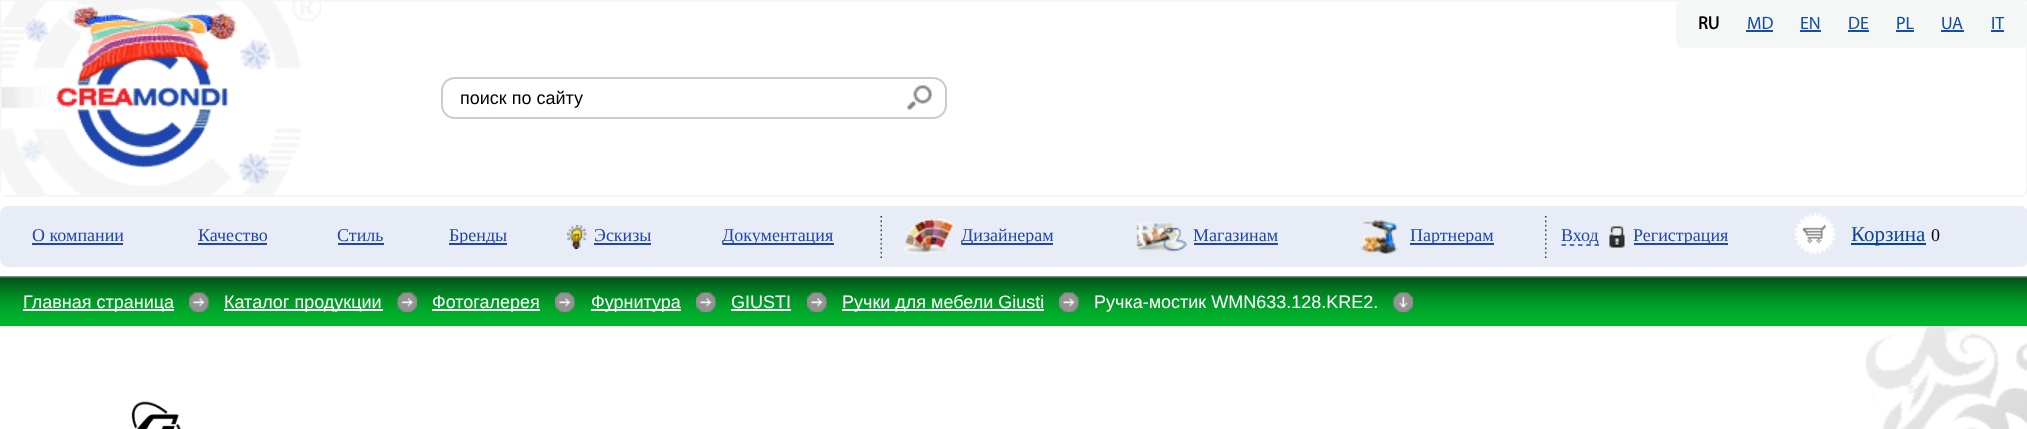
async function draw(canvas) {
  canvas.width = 2027;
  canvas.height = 429;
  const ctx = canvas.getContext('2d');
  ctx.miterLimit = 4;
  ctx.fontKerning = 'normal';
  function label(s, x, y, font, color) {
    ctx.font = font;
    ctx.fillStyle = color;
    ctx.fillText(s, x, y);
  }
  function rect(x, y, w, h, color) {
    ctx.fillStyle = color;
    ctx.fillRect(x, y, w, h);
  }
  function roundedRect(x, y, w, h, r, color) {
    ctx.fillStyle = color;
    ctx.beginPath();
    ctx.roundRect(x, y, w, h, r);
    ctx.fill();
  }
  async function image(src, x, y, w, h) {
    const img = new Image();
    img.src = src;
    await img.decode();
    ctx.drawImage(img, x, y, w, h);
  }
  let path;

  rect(0, 0, 2027, 429, '#fff');
  path = new Path2D('M1 1H2027V189C2027 193 2024 196 2020 196H8C4 196 1 193 1 189Z');
  ctx.strokeStyle = '#f4f7f5';
  ctx.lineWidth = 2;
  ctx.stroke(path);
  await image('assets/img1.png', 1, 1, 321, 194);
  roundedRect(1676, 2, 351, 46, 6, '#f4f7f5');
  label('RU', 1698, 29, 'bold 18px Myriad', '#000');
  label('MD', 1747, 29, '18px Myriad', '#134da4');
  rect(1746, 30, 27, 2, '#134da4');
  label('EN', 1800, 29, '18px Myriad', '#134da4');
  rect(1800, 30, 21, 2, '#134da4');
  label('DE', 1848, 29, '18px Myriad', '#134da4');
  rect(1848, 30, 21, 2, '#134da4');
  label('PL', 1896, 29, '18px Myriad', '#134da4');
  rect(1896, 30, 18, 2, '#134da4');
  label('UA', 1941, 29, '18px Myriad', '#134da4');
  rect(1941, 30, 23, 2, '#134da4');
  label('IT', 1991, 29, '18px Myriad', '#134da4');
  rect(1991, 30, 13, 2, '#134da4');
  ctx.beginPath();
  ctx.roundRect(442, 78, 504, 40, 13);
  ctx.strokeStyle = '#ccc';
  ctx.stroke();
  label('поиск по сайту', 460, 104, '18px Liberation Sans', '#000');
  await image('assets/img2.png', 907, 85, 25, 25);
  roundedRect(0, 206, 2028, 61, 8, '#e8ecf7');
  label('О компании', 32, 241, '18px Liberation Serif', '#1e46ae');
  rect(32, 243, 91, 2, '#1e46ae');
  label('Качество', 198, 241, '18px Liberation Serif', '#1e46ae');
  rect(198, 243, 69, 2, '#1e46ae');
  label('Стиль', 337, 241, '18px Liberation Serif', '#1e46ae');
  rect(338, 243, 46, 2, '#1e46ae');
  rect(449, 243, 58, 2, '#1e46ae');
  label('Бренды', 449, 241, '18px Liberation Serif', '#1e46ae');
  await image('assets/img3.png', 567, 225, 20, 24);
  label('Эскизы', 594, 241, '18px Liberation Serif', '#1e46ae');
  rect(594, 243, 57, 2, '#1e46ae');
  rect(723, 243, 111, 2, '#1e46ae');
  label('Документация', 722, 241, '18px Liberation Serif', '#1e46ae');
  await image('assets/img4.png', 880, 216, 2, 42);
  await image('assets/img5.png', 904, 219, 50, 35);
  rect(962, 243, 91, 2, '#1e46ae');
  label('Дизайнерам', 961, 241, '18px Liberation Serif', '#1e46ae');
  await image('assets/img6.png', 1136, 222, 51, 31);
  label('Магазинам', 1193, 241, '18px Liberation Serif', '#1e46ae');
  rect(1194, 243, 84, 2, '#1e46ae');
  await image('assets/img7.png', 1359, 220, 40, 34);
  rect(1410, 243, 84, 2, '#1e46ae');
  label('Партнерам', 1410, 241, '18px Liberation Serif', '#1e46ae');
  await image('assets/img8.png', 1545, 216, 2, 42);
  path = new Path2D('M1561.5 245H1599');
  ctx.strokeStyle = '#1e46ae';
  ctx.lineWidth = 1.5;
  ctx.setLineDash([4.5, 3.75]);
  ctx.stroke(path);
  label('Вход', 1561, 241, '18px Liberation Serif', '#1e46ae');
  await image('assets/img9.png', 1609, 226, 16, 23);
  rect(1634, 243, 94, 2, '#1e46ae');
  label('Регистрация', 1633, 241, '18px Liberation Serif', '#1e46ae');
  await image('assets/img10.png', 1794, 213, 42, 42);
  rect(1851, 243, 75, 2, '#04439e');
  label('Корзина', 1851, 241, '21px Liberation Serif', '#04439e');
  label('0', 1931, 241, '18px Liberation Serif', '#000');
  rect(0, 276, 2027, 2, '#828387');
  rect(0, 318, 2027, 8, '#00b32d');
  await image('assets/img11.png', 0, 277, 2027, 41);
  rect(23, 309, 151, 2, '#fff');
  label('Главная страница', 23, 308, '18px Liberation Sans', '#fff');
  await image('assets/img12.png', 189, 292, 20, 20);
  rect(224, 309, 159, 2, '#fff');
  label('Каталог продукции', 224, 308, '18px Liberation Sans', '#fff');
  await image('assets/img13.png', 397, 292, 20, 20);
  rect(432, 309, 108, 2, '#fff');
  label('Фотогалерея', 432, 308, '18px Liberation Sans', '#fff');
  await image('assets/img12.png', 555, 292, 20, 20);
  rect(591, 309, 90, 2, '#fff');
  label('Фурнитура', 591, 308, '18px Liberation Sans', '#fff');
  await image('assets/img12.png', 696, 292, 20, 20);
  label('GIUSTI', 731, 308, '18px Liberation Sans', '#fff');
  rect(731, 309, 60, 2, '#fff');
  await image('assets/img12.png', 807, 292, 20, 20);
  rect(842, 309, 202, 2, '#fff');
  label('Ручки для мебели Giusti', 842, 308, '18px Liberation Sans', '#fff');
  await image('assets/img14.png', 1059, 292, 20, 20);
  label('Ручка-мостик WMN633.128.KRE2.', 1094, 308, '18px Liberation Sans', '#fff');
  await image('assets/img15.png', 1393, 292, 20, 20);
  await image('assets/img16.png', 1866, 327, 161, 102);
  await image('assets/img17.png', 131, 401, 51, 28);
}

draw(document.querySelector('canvas'));
